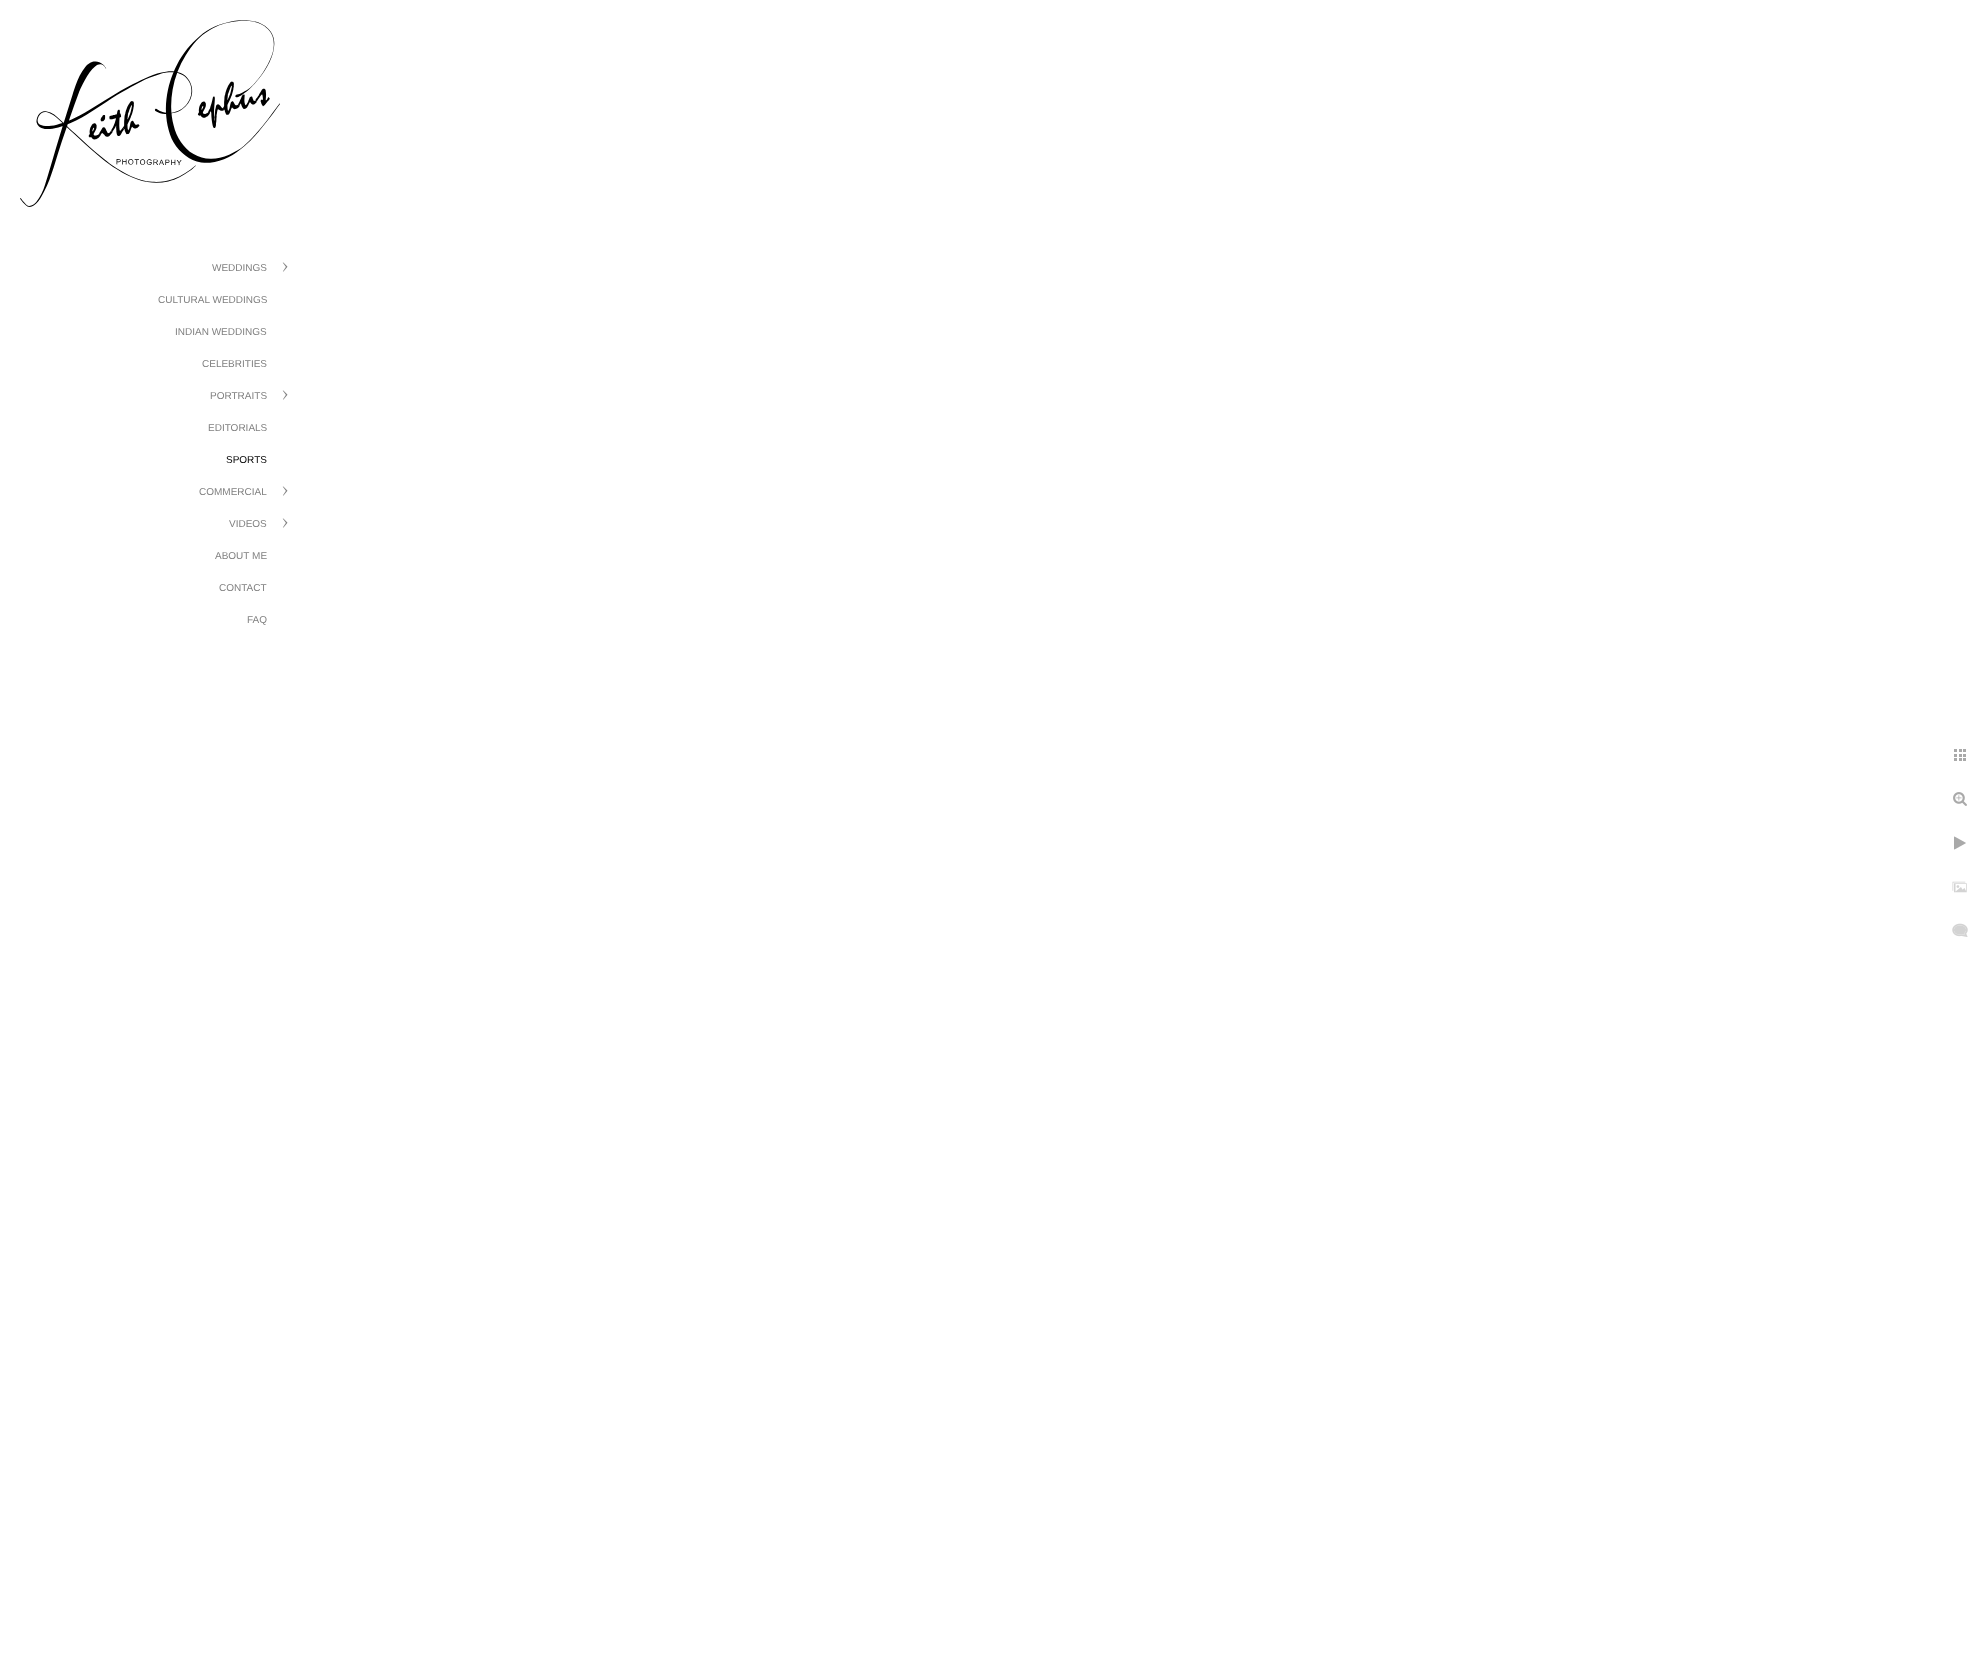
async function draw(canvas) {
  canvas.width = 1987;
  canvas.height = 1665;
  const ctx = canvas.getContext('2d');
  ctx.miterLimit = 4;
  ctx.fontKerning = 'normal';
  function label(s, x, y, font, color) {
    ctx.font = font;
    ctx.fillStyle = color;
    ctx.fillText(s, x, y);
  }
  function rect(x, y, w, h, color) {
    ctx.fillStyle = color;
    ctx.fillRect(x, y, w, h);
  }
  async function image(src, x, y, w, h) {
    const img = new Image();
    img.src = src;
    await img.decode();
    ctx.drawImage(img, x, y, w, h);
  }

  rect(0, 0, 1987, 1665, '#fff');
  await image('assets/img1.png', 20, 20, 260, 187);
  label('WEDDINGS', 212, 271, '10px Liberation Sans', '#808080');
  await image('assets/img2.png', 282, 262, 6, 10);
  label('CULTURAL WEDDINGS', 158, 303, '10px Liberation Sans', '#808080');
  label('INDIAN WEDDINGS', 175, 335, '10px Liberation Sans', '#808080');
  label('CELEBRITIES', 202, 367, '10px Liberation Sans', '#808080');
  label('PORTRAITS', 210, 399, '10px Liberation Sans', '#808080');
  await image('assets/img2.png', 282, 390, 6, 10);
  label('EDITORIALS', 208, 431, '10px Liberation Sans', '#808080');
  label('SPORTS', 226, 463, '10px Liberation Sans', '#000');
  label('COMMERCIAL', 199, 495, '10px Liberation Sans', '#808080');
  await image('assets/img2.png', 282, 486, 6, 10);
  label('VIDEOS', 229, 527, '10px Liberation Sans', '#808080');
  await image('assets/img2.png', 282, 518, 6, 10);
  label('ABOUT ME', 215, 559, '10px Liberation Sans', '#808080');
  label('CONTACT', 219, 591, '10px Liberation Sans', '#808080');
  label('FAQ', 247, 623, '10px Liberation Sans', '#808080');
  await image('assets/img3.png', 1954, 749, 12, 12);
  await image('assets/img4.png', 1953, 792, 14, 14);
  await image('assets/img5.png', 1954, 836, 12, 14);
  await image('assets/img6.png', 1952, 881, 15, 12);
  await image('assets/img7.png', 1952, 923, 16, 14);
}

draw(document.querySelector('canvas'));
